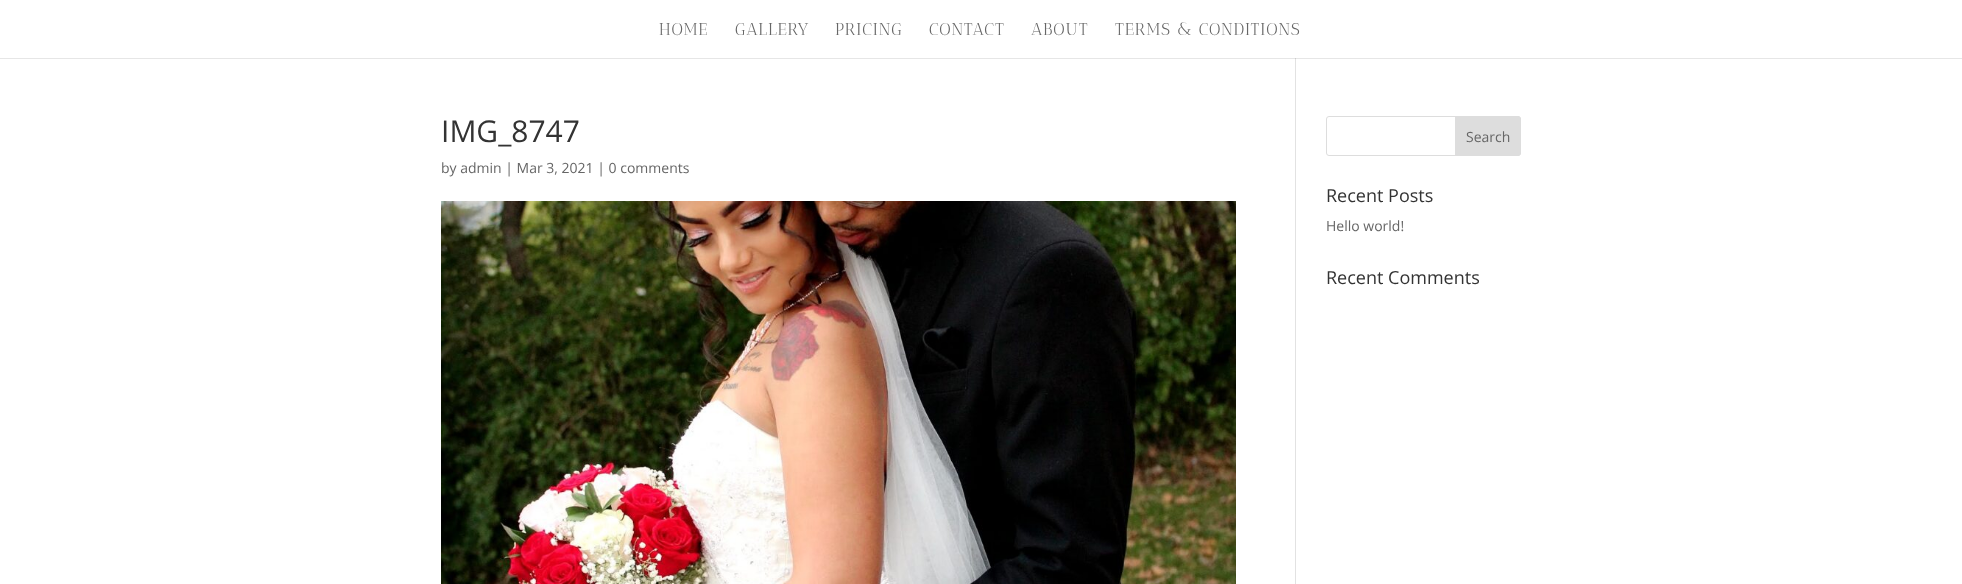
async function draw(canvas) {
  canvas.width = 1962;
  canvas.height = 584;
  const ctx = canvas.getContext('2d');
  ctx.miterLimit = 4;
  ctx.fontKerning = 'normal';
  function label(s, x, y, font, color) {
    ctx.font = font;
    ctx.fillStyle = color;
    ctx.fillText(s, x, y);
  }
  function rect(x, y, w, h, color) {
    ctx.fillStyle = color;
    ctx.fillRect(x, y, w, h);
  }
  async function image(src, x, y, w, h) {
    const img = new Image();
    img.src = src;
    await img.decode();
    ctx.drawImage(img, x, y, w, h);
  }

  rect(0, 0, 1962, 584, '#fff');
  rect(0, 58, 1962, 1, '#e6e6e6');
  ctx.letterSpacing = '1px';
  label('HOME', 659, 35, '17px Antic Didone', '#666');
  label('GALLERY', 735, 35, '17px Antic Didone', '#666');
  label('PRICING', 835, 35, '17px Antic Didone', '#666');
  label('CONTACT', 929, 35, '17px Antic Didone', '#666');
  label('ABOUT', 1031, 35, '17px Antic Didone', '#666');
  label('TERMS & CONDITIONS', 1115, 35, '17px Antic Didone', '#666');
  rect(1295, 58, 1, 526, '#e2e2e2');
  rect(1295, 58, 1, 1, '#cbcbcb');
  ctx.letterSpacing = '0px';
  label('IMG_8747', 441, 142, '30px Open Sans', '#333');
  label('by admin | Mar 3, 2021 | 0 comments', 441, 173, '14px Open Sans', '#666');
  await image('assets/img1.png', 441, 201, 795, 383);
  ctx.beginPath();
  ctx.roundRect(1326.5, 116.5, 194, 39, 2.5);
  ctx.strokeStyle = '#ddd';
  ctx.stroke();
  ctx.fillStyle = '#ddd';
  ctx.beginPath();
  ctx.roundRect(1455.5, 116.5, 65, 39, [0, 2.5, 2.5, 0]);
  ctx.fill();
  ctx.stroke();
  label('Search', 1466, 142, '14px Open Sans', '#666');
  label('Recent Posts', 1326, 202, '18px Open Sans', '#333');
  label('Hello world!', 1326, 231, '14px Open Sans', '#666');
  label('Recent Comments', 1326, 284, '18px Open Sans', '#333');
}

draw(document.querySelector('canvas'));
